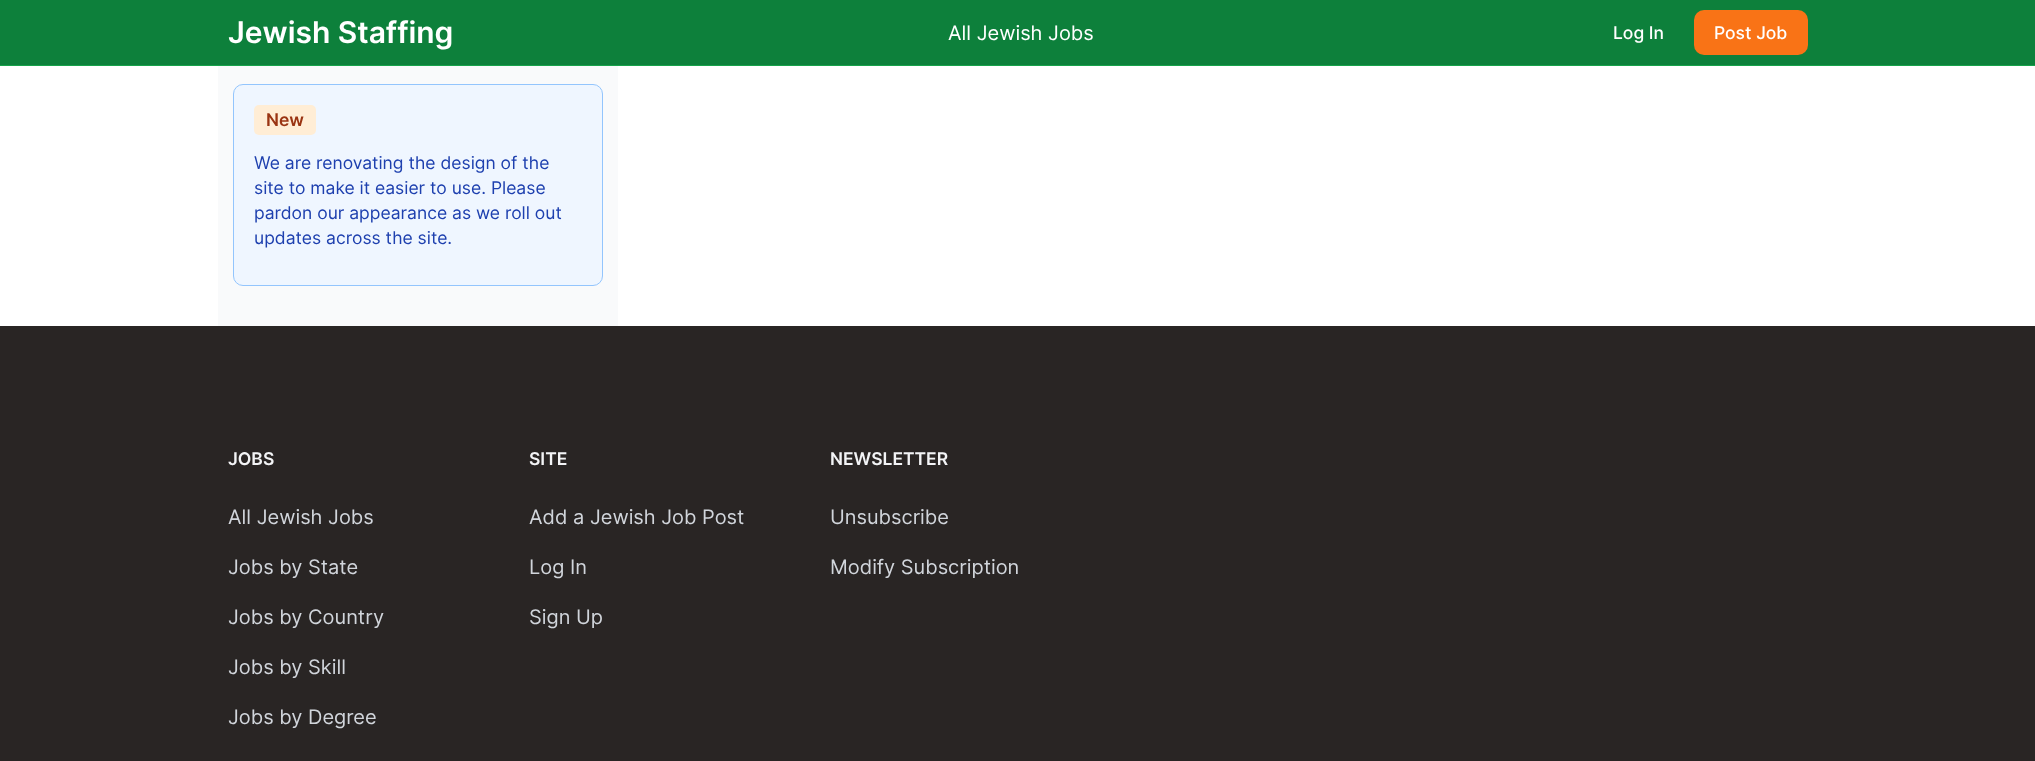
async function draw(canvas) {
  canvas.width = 2035;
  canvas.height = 761;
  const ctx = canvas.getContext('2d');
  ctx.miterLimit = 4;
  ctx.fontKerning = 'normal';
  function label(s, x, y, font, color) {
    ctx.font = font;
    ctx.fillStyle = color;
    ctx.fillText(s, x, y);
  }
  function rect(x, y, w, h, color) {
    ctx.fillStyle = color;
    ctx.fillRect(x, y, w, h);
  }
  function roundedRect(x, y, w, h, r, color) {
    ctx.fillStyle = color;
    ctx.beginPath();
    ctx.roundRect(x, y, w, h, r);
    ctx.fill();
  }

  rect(0, 0, 2035, 761, '#fff');
  rect(0, 0, 2035, 65, '#0d803b');
  rect(0, 65, 2035, 1, '#16a34a');
  label('Jewish Staffing', 228, 43, '600 30px Inter', '#fff');
  label('All Jewish Jobs', 948, 40, '20px Inter', '#fff');
  label('Log In', 1613, 39, '500 17.5px Inter', '#fff');
  roundedRect(1694, 10, 114, 45, 10, '#f97316');
  label('Post Job', 1714, 39, '500 17.5px Inter', '#fff');
  rect(218, 66, 400, 260, '#f9fafb');
  ctx.fillStyle = '#eff6ff';
  ctx.beginPath();
  ctx.roundRect(233.5, 84.5, 369, 201, 9.5);
  ctx.fill();
  ctx.strokeStyle = '#93c5fd';
  ctx.stroke();
  roundedRect(254, 105, 62, 30, 5, '#ffedd5');
  label('New', 266, 126, '600 17.5px Inter', '#9a3412');
  label('We are renovating the design of the', 254, 169, '17.5px Inter', '#1e40af');
  label('site to make it easier to use. Please', 254, 194, '17.5px Inter', '#1e40af');
  label('pardon our appearance as we roll out', 254, 219, '17.5px Inter', '#1e40af');
  label('updates across the site.', 254, 244, '17.5px Inter', '#1e40af');
  rect(0, 326, 2035, 435, '#292524');
  label('JOBS', 228, 465, '600 17.5px Inter', '#f3f4f6');
  label('All Jewish Jobs', 228, 524, '20px Inter', '#d1d5db');
  label('Jobs by State', 228, 574, '20px Inter', '#d1d5db');
  label('Jobs by Country', 228, 624, '20px Inter', '#d1d5db');
  label('Jobs by Skill', 228, 674, '20px Inter', '#d1d5db');
  label('Jobs by Degree', 228, 724, '20px Inter', '#d1d5db');
  label('SITE', 529, 465, '600 17.5px Inter', '#f3f4f6');
  label('Add a Jewish Job Post', 529, 524, '20px Inter', '#d1d5db');
  label('Log In', 529, 574, '20px Inter', '#d1d5db');
  label('Sign Up', 529, 624, '20px Inter', '#d1d5db');
  label('NEWSLETTER', 830, 465, '600 17.5px Inter', '#f3f4f6');
  label('Unsubscribe', 830, 524, '20px Inter', '#d1d5db');
  label('Modify Subscription', 830, 574, '20px Inter', '#d1d5db');
}

draw(document.querySelector('canvas'));
